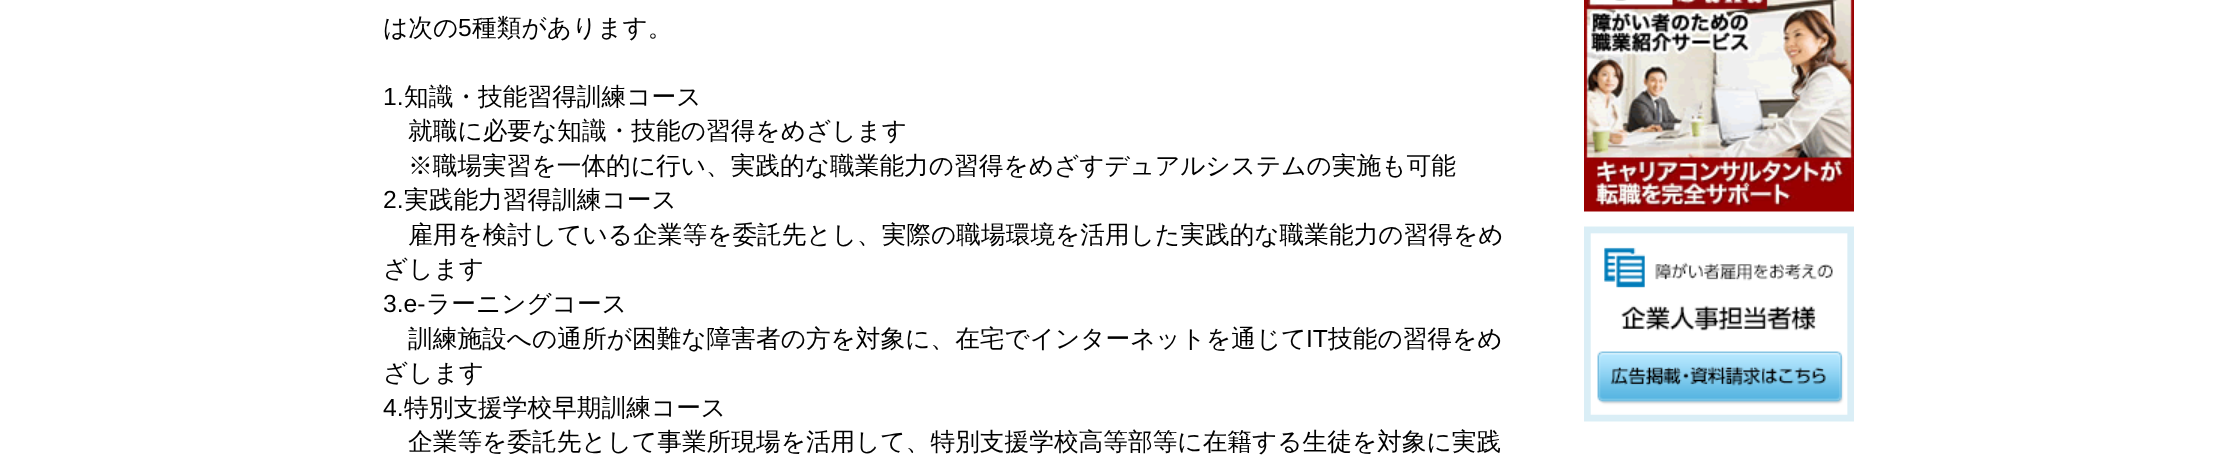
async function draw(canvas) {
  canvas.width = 2236;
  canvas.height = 476;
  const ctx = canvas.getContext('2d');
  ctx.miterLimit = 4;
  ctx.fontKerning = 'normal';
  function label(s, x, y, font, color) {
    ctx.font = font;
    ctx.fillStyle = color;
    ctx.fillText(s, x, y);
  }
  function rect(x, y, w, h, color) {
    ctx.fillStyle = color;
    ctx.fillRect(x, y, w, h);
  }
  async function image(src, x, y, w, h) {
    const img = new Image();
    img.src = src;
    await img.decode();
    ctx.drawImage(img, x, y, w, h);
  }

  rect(0, 0, 2236, 476, '#fff');
  label('は次の', 383, 36, '500 24.7px WenQuanYi Zen Hei', '#000');
  label('5', 458, 36, '24.7px Liberation Sans', '#000');
  label('種類があります。', 472, 36, '500 24.7px WenQuanYi Zen Hei', '#000');
  label('1.', 383, 105, '24.7px Liberation Sans', '#000');
  label('知識・技能習得訓練コース', 404, 105, '500 24.7px WenQuanYi Zen Hei', '#000');
  label('就職に必要な知識・技能の習得をめざします', 408, 139, '500 24.7px WenQuanYi Zen Hei', '#000');
  label('※職場実習を一体的に行い、実践的な職業能力の習得をめざすデュアルシステムの実施も可能', 408, 174, '500 24.7px WenQuanYi Zen Hei', '#000');
  label('2.', 383, 208, '24.7px Liberation Sans', '#000');
  label('実践能力習得訓練コース', 404, 208, '500 24.7px WenQuanYi Zen Hei', '#000');
  label('雇用を検討している企業等を委託先とし、実際の職場環境を活用した実践的な職業能力の習得をめ', 408, 243, '500 24.7px WenQuanYi Zen Hei', '#000');
  label('ざします', 383, 277, '500 24.7px WenQuanYi Zen Hei', '#000');
  label('3.e-', 383, 312, '24.7px Liberation Sans', '#000');
  label('ラーニングコース', 426, 312, '500 24.7px WenQuanYi Zen Hei', '#000');
  label('訓練施設への通所が困難な障害者の方を対象に、在宅でインターネットを通じて', 408, 347, '500 24.7px WenQuanYi Zen Hei', '#000');
  label('IT', 1306, 347, '24.7px Liberation Sans', '#000');
  label('技能の習得をめ', 1328, 347, '500 24.7px WenQuanYi Zen Hei', '#000');
  label('ざします', 383, 381, '500 24.7px WenQuanYi Zen Hei', '#000');
  label('4.', 383, 416, '24.7px Liberation Sans', '#000');
  label('特別支援学校早期訓練コース', 404, 416, '500 24.7px WenQuanYi Zen Hei', '#000');
  label('企業等を委託先として事業所現場を活用して、特別支援学校高等部等に在籍する生徒を対象に実践', 408, 450, '500 24.7px WenQuanYi Zen Hei', '#000');
  await image('assets/img1.png', 1584, 0, 270, 212);
  await image('assets/img2.png', 1584, 226, 270, 196);
}

draw(document.querySelector('canvas'));
